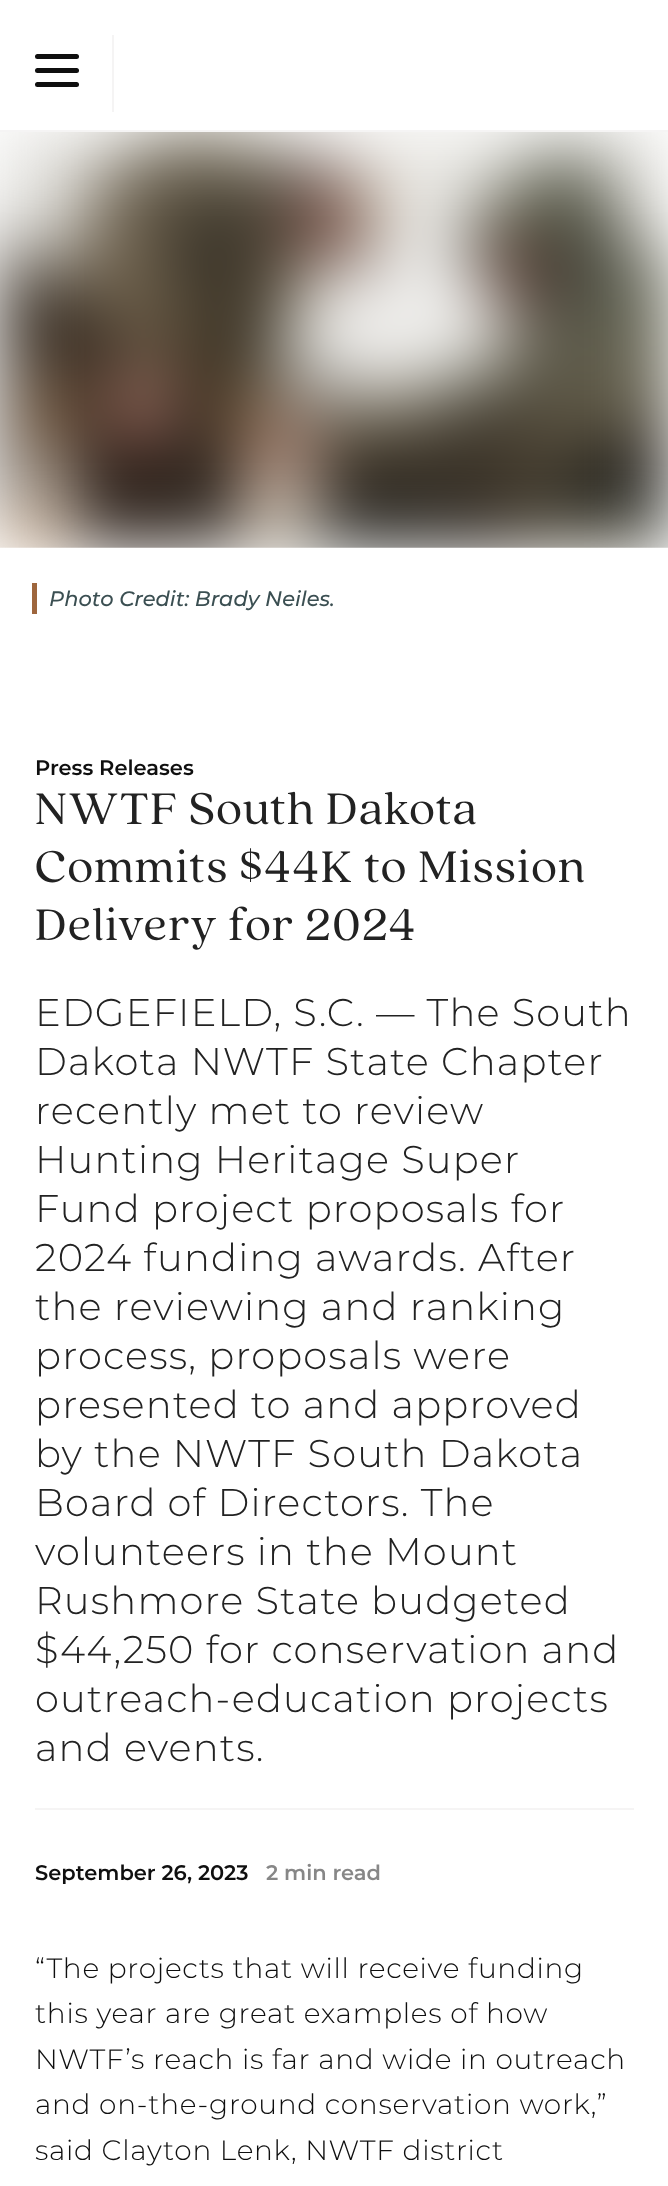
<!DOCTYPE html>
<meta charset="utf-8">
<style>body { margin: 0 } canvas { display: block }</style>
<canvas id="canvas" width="668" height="2186"></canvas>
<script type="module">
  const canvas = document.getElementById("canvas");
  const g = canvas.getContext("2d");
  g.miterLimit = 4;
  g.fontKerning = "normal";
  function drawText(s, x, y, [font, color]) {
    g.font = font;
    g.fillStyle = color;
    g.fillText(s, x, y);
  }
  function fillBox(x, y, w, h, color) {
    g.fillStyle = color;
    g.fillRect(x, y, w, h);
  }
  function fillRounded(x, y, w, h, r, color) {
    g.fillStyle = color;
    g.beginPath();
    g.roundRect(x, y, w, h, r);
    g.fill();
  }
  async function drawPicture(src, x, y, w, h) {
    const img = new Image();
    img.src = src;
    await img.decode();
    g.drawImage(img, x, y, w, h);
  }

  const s1 = ["italic 500 21px Montserrat", "#3B4F52"];
  const s2 = ["600 21px Montserrat", "#0F0F0F"];
  const s3 = ["49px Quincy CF", "#222222"];
  const s4 = ["300 38.5px Montserrat", "#222222"];
  const s5 = ["600 21px Montserrat", "#878787"];
  const s6 = ["300 28px Montserrat", "#0F0F0F"];

  fillBox(0, 0, 668, 2186, "#FFFFFF");
  fillBox(0, 130, 668, 2, "#F5F4F4");
  fillBox(112, 35, 2, 77, "#F5F4F4");
  fillRounded(35, 54, 44, 5, 2.5, "#0F0F0F");
  fillRounded(35, 68, 44, 5, 2.5, "#0F0F0F");
  fillRounded(35, 82, 44, 5, 2.5, "#0F0F0F");
  await drawPicture("pic1.png", 0, 132, 668, 416);
  fillBox(32, 583, 5, 31, "#9E663D");
  drawText("Photo Credit: Brady Neiles.", 49, 606, s1);
  drawText("Press Releases", 35, 775, s2);
  g.letterSpacing = "1.5px";
  drawText("NWTF South Dakota", 35, 824, s3);
  drawText("Commits $44K to Mission", 35, 882, s3);
  drawText("Delivery for 2024", 35, 940, s3);
  g.letterSpacing = "1.15px";
  drawText("EDGEFIELD, S.C. — The South", 35, 1026, s4);
  drawText("Dakota NWTF State Chapter", 35, 1075, s4);
  drawText("recently met to review", 35, 1124, s4);
  drawText("Hunting Heritage Super", 35, 1173, s4);
  drawText("Fund project proposals for", 35, 1222, s4);
  drawText("2024 funding awards. After", 35, 1271, s4);
  drawText("the reviewing and ranking", 35, 1320, s4);
  drawText("process, proposals were", 35, 1369, s4);
  drawText("presented to and approved", 35, 1418, s4);
  drawText("by the NWTF South Dakota", 35, 1467, s4);
  drawText("Board of Directors. The", 35, 1516, s4);
  drawText("volunteers in the Mount", 35, 1565, s4);
  drawText("Rushmore State budgeted", 35, 1614, s4);
  drawText("$44,250 for conservation and", 35, 1663, s4);
  drawText("outreach-education projects", 35, 1712, s4);
  drawText("and events.", 35, 1761, s4);
  fillBox(35, 1808, 599, 2, "#F5F4F4");
  g.letterSpacing = "0px";
  drawText("September 26, 2023", 35, 1880, s2);
  drawText("2 min read", 266, 1880, s5);
  g.letterSpacing = "0.7px";
  drawText("“The projects that will receive funding", 35, 1978, s6);
  drawText("this year are great examples of how", 35, 2023, s6);
  drawText("NWTF’s reach is far and wide in outreach", 35, 2069, s6);
  drawText("and on-the-ground conservation work,”", 35, 2114, s6);
  drawText("said Clayton Lenk, NWTF district", 35, 2160, s6);
</script>
